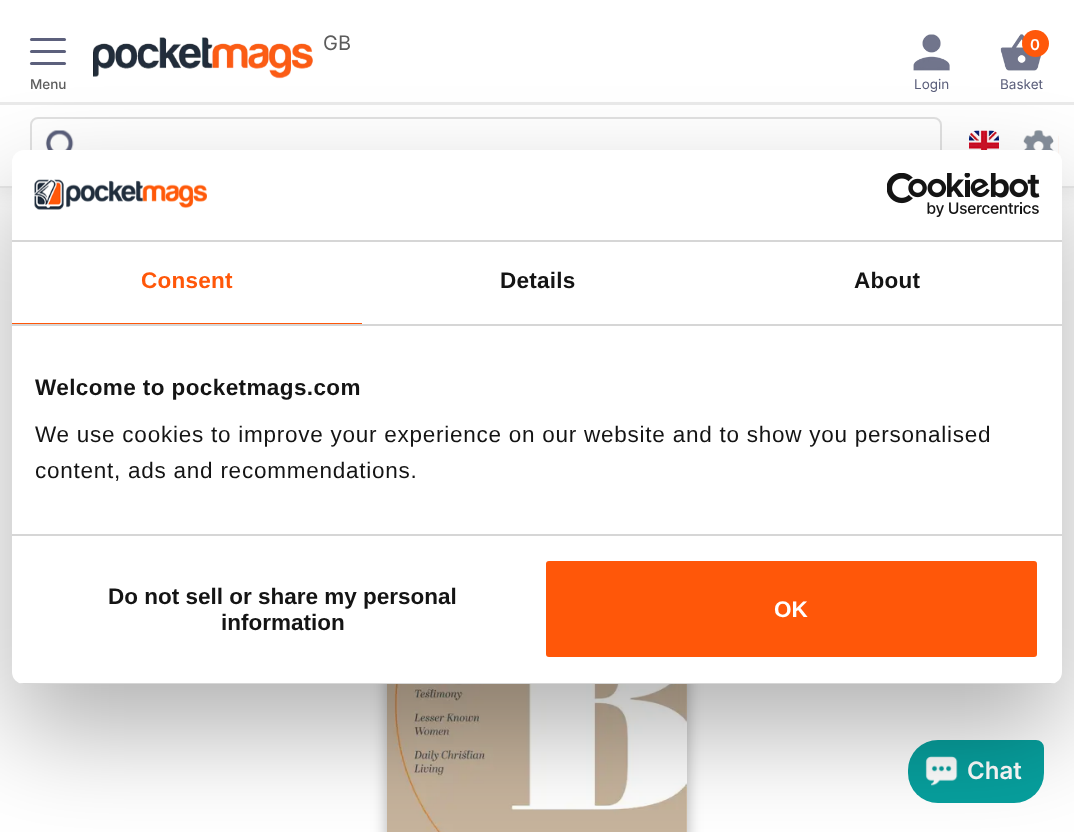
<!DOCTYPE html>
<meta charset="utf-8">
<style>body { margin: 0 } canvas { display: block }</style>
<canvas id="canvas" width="1074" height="832"></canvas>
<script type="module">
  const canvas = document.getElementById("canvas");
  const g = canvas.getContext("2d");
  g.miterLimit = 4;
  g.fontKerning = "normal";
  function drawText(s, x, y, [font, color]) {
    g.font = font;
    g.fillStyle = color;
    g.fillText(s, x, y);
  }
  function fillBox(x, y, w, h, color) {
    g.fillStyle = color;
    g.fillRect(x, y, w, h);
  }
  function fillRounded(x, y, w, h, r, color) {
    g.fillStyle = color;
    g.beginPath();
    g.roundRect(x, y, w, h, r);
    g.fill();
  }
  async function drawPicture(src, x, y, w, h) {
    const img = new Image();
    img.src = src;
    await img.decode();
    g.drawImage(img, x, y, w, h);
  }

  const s1 = ["500 13.5px Inter", "#5C5C5C"];
  const s2 = ["20px Inter", "#5C5C5C"];
  const s3 = ["13.5px Inter", "#5C607C"];
  const s4 = ["600 15px Inter", "#FFFFFF"];
  const s5 = ["600 24px Inter", "#FFFFFF"];
  const s6 = ["bold 22.5px Liberation Sans", "#FF5709"];
  const s7 = ["bold 22.5px Liberation Sans", "#141414"];
  const s8 = ["22.5px Liberation Sans", "#141414"];
  const s9 = ["bold 22.5px Liberation Sans", "#FFFFFF"];

  fillBox(0, 0, 1074, 832, "#FFFFFF");
  g.fillStyle = "rgba(0, 0, 0, 0.05)";
  g.filter = "blur(7.5px)";
  g.beginPath();
  g.rect(-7, -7, 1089, 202);
  g.fill();
  g.filter = "none";
  fillBox(0, 0, 1074, 186, "#FFFFFF");
  fillBox(0, 102, 1074, 3, "#EAEAEA");
  fillRounded(30, 38, 36, 3, 1.5, "#5C607C");
  fillRounded(30, 50, 36, 3, 1.5, "#5C607C");
  fillRounded(30, 62, 36, 3, 1.5, "#5C607C");
  drawText("Menu", 30, 89, s1);
  await drawPicture("pic1.png", 93, 37, 220, 42);
  drawText("GB", 323, 50, s2);
  await drawPicture("pic2.png", 913, 34, 37, 37);
  drawText("Login", 914, 89, s3);
  await drawPicture("pic3.png", 1000, 34, 41, 37);
  g.fillStyle = "#FF580A";
  g.beginPath();
  g.arc(1035.5, 43.5, 13.5, 0, Math.PI * 2);
  g.fill();
  drawText("0", 1030, 50, s4);
  drawText("Basket", 1000, 89, s3);
  fillBox(0, 186, 1074, 2, "#EAEAEA");
  g.beginPath();
  g.roundRect(31, 118, 910, 55, 7);
  g.strokeStyle = "#E1E1E1";
  g.lineWidth = 2;
  g.stroke();
  await drawPicture("pic4.png", 45, 130, 29, 20);
  await drawPicture("pic5.png", 969, 130, 30, 20);
  await drawPicture("pic6.png", 1023, 130, 36, 25);
  g.fillStyle = "rgba(0, 0, 0, 0.3)";
  g.filter = "blur(7.5px)";
  g.beginPath();
  g.roundRect(387, 572, 300, 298, 15);
  g.fill();
  g.filter = "none";
  await drawPicture("pic7.png", 387, 684, 300, 148);
  g.fillStyle = "#07A09E";
  g.beginPath();
  g.roundRect(908, 740, 136, 63, [30, 8, 30, 30]);
  g.fill();
  await drawPicture("pic8.png", 925, 756, 33, 30);
  drawText("Chat", 967, 779, s5);
  g.fillStyle = "rgba(0, 0, 0, 0.3)";
  g.filter = "blur(51px)";
  g.beginPath();
  g.roundRect(12, 198, 1050, 534, 12);
  g.fill();
  g.filter = "none";
  fillRounded(12, 150, 1050, 534, 12, "#FFFFFF");
  fillBox(12, 240, 1050, 2, "#D6D6D6");
  await drawPicture("pic9.png", 34, 179, 173, 31);
  await drawPicture("pic10.png", 887, 173, 153, 44);
  fillBox(12, 324, 1050, 2, "#D6D6D6");
  fillBox(12, 323, 350, 1, "#FF5709");
  g.letterSpacing = "0.25px";
  drawText("Consent", 141, 288, s6);
  drawText("Details", 500, 288, s7);
  drawText("About", 854, 288, s7);
  fillBox(12, 534, 1050, 2, "#D6D6D6");
  g.letterSpacing = "0.4px";
  drawText("Welcome to pocketmags.com", 35, 395, s7);
  g.letterSpacing = "0.75px";
  drawText("We use cookies to improve your experience on our website and to show you personalised", 35, 442, s8);
  drawText("content, ads and recommendations.", 35, 478, s8);
  g.save();
  g.beginPath();
  g.roundRect(12, 150, 1050, 534, 12);
  g.clip();
  fillBox(12, 683, 1050, 1, "#D6D6D6");
  g.restore();
  g.letterSpacing = "0px";
  drawText("Do not sell or share my personal", 108, 604, s7);
  drawText("information", 221, 630, s7);
  g.fillStyle = "#FF5709";
  g.beginPath();
  g.roundRect(544.5, 559.5, 494, 99, 4.5);
  g.fill();
  g.strokeStyle = "#FFFFFF";
  g.lineWidth = 3;
  g.stroke();
  drawText("OK", 774, 617, s9);
</script>
